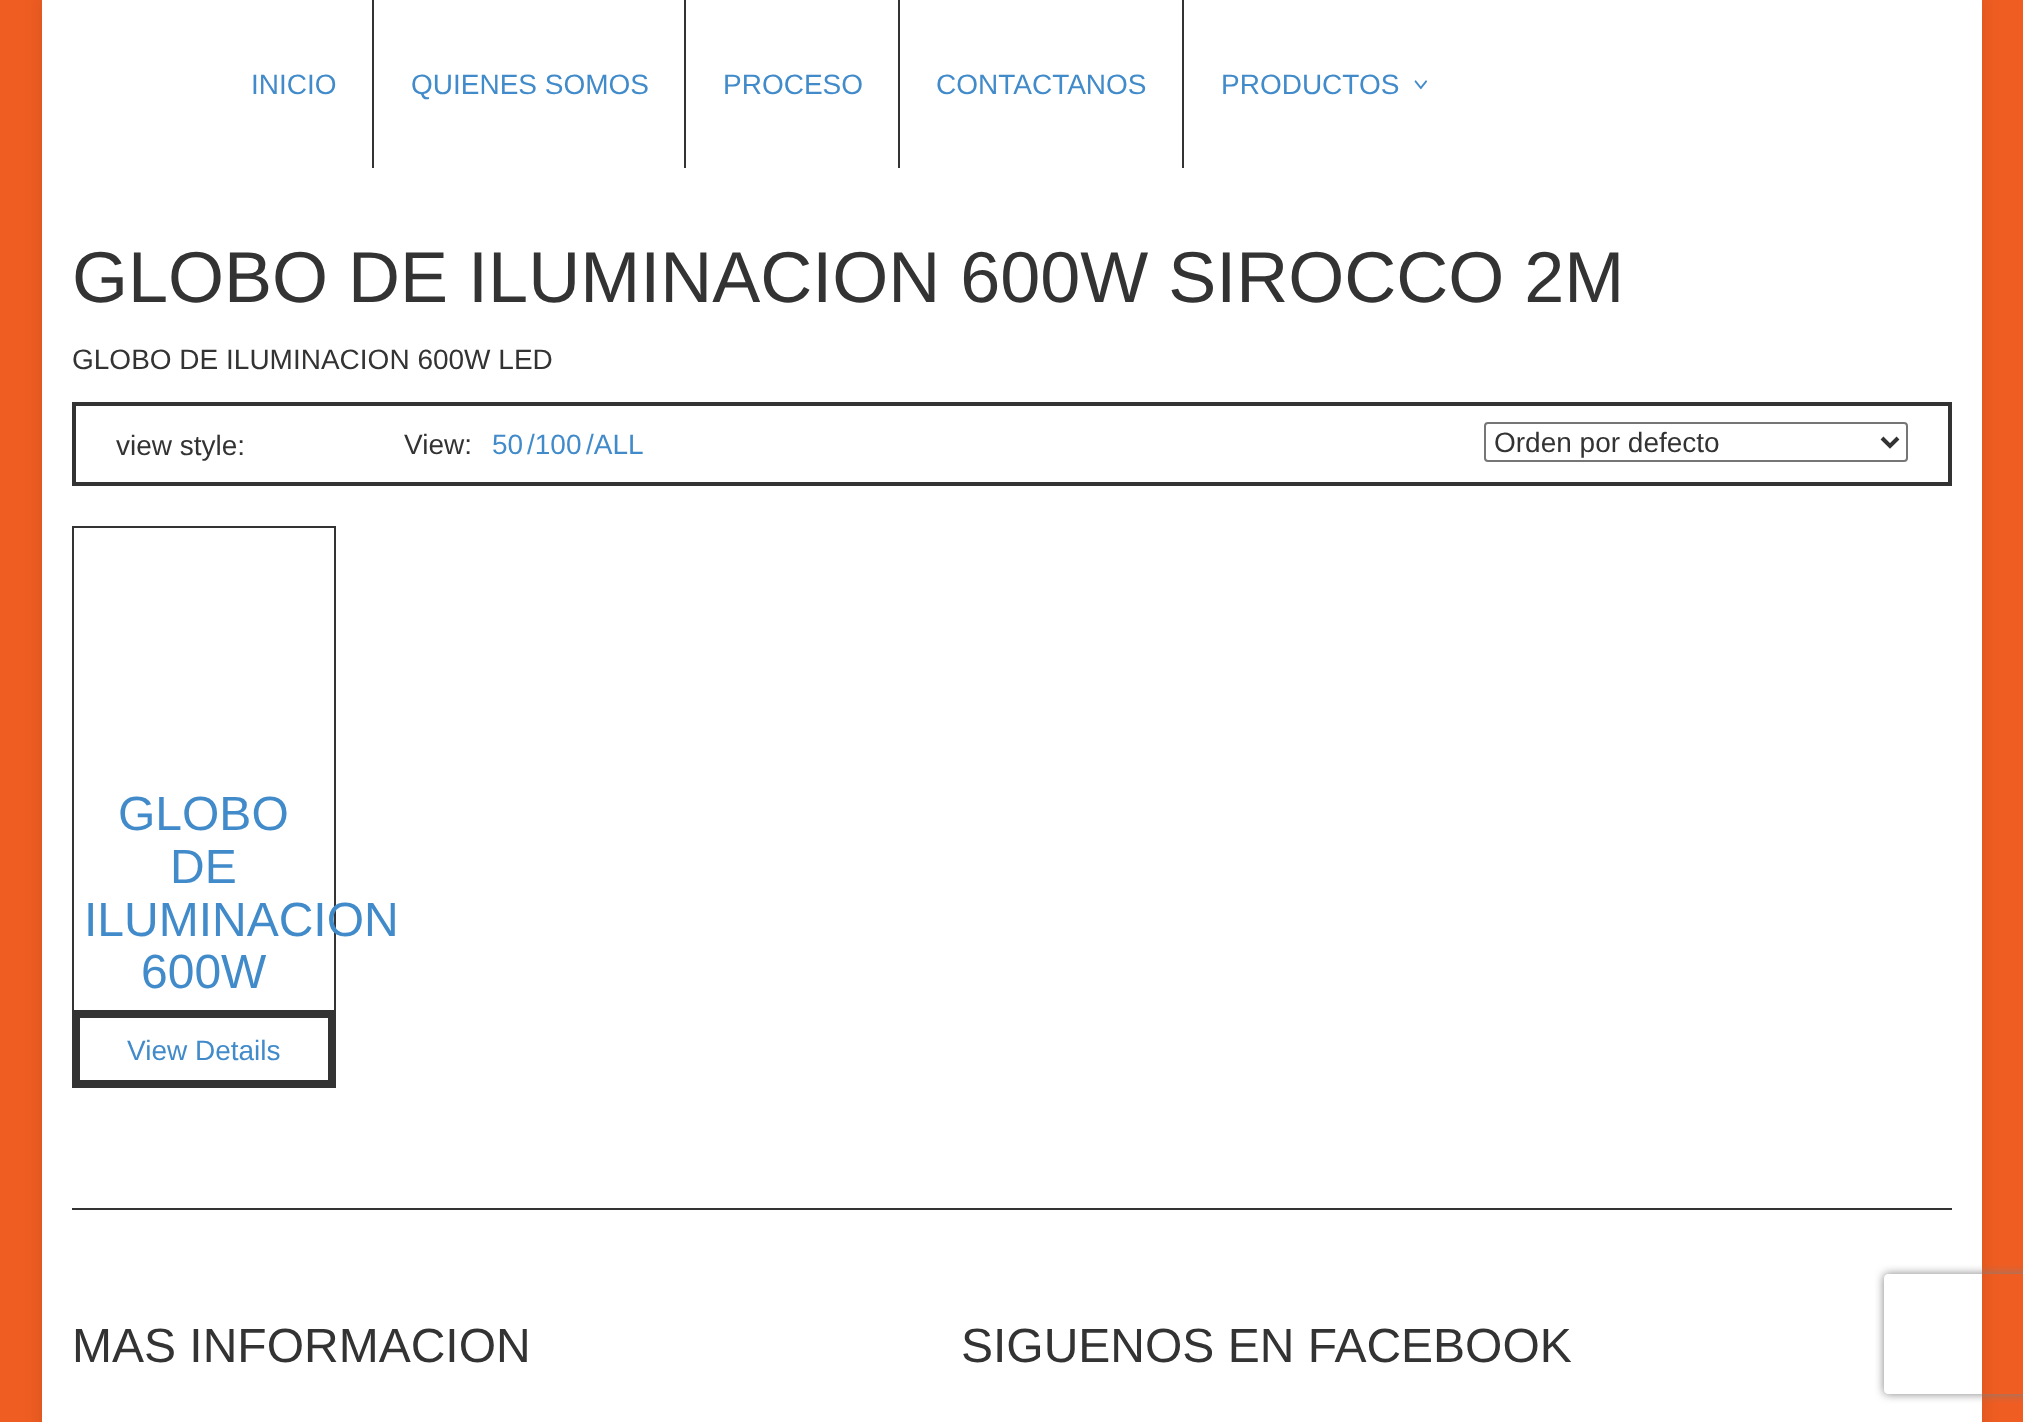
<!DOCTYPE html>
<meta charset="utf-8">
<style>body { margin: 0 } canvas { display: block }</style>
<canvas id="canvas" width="2023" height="1422"></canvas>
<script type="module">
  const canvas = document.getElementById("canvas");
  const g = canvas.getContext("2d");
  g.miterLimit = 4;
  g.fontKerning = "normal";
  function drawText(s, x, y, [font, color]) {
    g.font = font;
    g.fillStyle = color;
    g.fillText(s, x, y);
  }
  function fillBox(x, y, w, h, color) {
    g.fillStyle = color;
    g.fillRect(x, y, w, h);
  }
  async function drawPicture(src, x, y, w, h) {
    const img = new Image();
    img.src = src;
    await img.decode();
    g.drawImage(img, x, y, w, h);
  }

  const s1 = ["28px Liberation Sans", "#428BCA"];
  const s2 = ["72px Liberation Sans", "#333333"];
  const s3 = ["28px Liberation Sans", "#333333"];
  const s4 = ["48px Liberation Sans", "#428BCA"];
  const s5 = ["48px Liberation Sans", "#333333"];

  fillBox(0, 0, 2023, 1422, "#EF5D22");
  g.fillStyle = "rgba(0, 0, 0, 0.1)";
  g.filter = "blur(9px)";
  g.beginPath();
  g.rect(42, -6, 1940, 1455);
  g.fill();
  g.filter = "none";
  fillBox(42, 0, 1940, 1422, "#FFFFFF");
  drawText("INICIO", 251, 94, s1);
  fillBox(372, 0, 2, 168, "#333333");
  drawText("QUIENES SOMOS", 411, 94, s1);
  fillBox(684, 0, 2, 168, "#333333");
  drawText("PROCESO", 723, 94, s1);
  fillBox(898, 0, 2, 168, "#333333");
  drawText("CONTACTANOS", 936, 94, s1);
  fillBox(1182, 0, 2, 168, "#333333");
  drawText("PRODUCTOS", 1221, 94, s1);
  await drawPicture("pic1.png", 1414, 80, 13, 10);
  drawText("GLOBO DE ILUMINACION 600W SIROCCO 2M", 72, 302, s2);
  drawText("GLOBO DE ILUMINACION 600W LED", 72, 369, s3);
  g.strokeStyle = "#333333";
  g.lineWidth = 4;
  g.strokeRect(74, 404, 1876, 80);
  drawText("view style:", 116, 455, s3);
  drawText("View:", 404, 454, s3);
  drawText("50", 492, 454, s1);
  drawText("/100", 527, 454, s1);
  drawText("/ALL", 586, 454, s1);
  g.beginPath();
  g.roundRect(1485, 423, 422, 38, 3);
  g.strokeStyle = "#767676";
  g.lineWidth = 2;
  g.stroke();
  g.beginPath();
  g.moveTo(1882, 438);
  g.lineTo(1890, 446);
  g.lineTo(1898, 438);
  g.strokeStyle = "#333333";
  g.lineWidth = 4;
  g.stroke();
  drawText("Orden por defecto", 1494, 452, s3);
  g.lineWidth = 2;
  g.strokeRect(73, 527, 262, 560);
  drawText("GLOBO", 118, 830, s4);
  drawText("DE", 170, 883, s4);
  drawText("ILUMINACION", 84, 936, s4);
  drawText("600W", 141, 988, s4);
  fillBox(74, 1010, 260, 2, "#333333");
  g.lineWidth = 6;
  g.strokeRect(77, 1015, 254, 68);
  drawText("View Details", 127, 1060, s1);
  fillBox(72, 1208, 1880, 2, "#333333");
  drawText("MAS INFORMACION", 72, 1362, s5);
  drawText("SIGUENOS EN FACEBOOK", 961, 1362, s5);
  g.save();
  g.beginPath();
  g.moveTo(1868, 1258);
  g.lineTo(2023, 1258);
  g.lineTo(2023, 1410);
  g.lineTo(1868, 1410);
  g.closePath();
  g.moveTo(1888, 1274);
  g.lineTo(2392, 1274);
  g.bezierCurveTo(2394, 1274, 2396, 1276, 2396, 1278);
  g.lineTo(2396, 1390);
  g.bezierCurveTo(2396, 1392, 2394, 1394, 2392, 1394);
  g.lineTo(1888, 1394);
  g.bezierCurveTo(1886, 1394, 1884, 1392, 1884, 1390);
  g.lineTo(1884, 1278);
  g.bezierCurveTo(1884, 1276, 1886, 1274, 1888, 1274);
  g.closePath();
  g.clip("evenodd");
  g.fillStyle = "#808080";
  g.filter = "blur(5px)";
  g.beginPath();
  g.roundRect(1884, 1274, 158, 120, 4);
  g.fill();
  g.filter = "none";
  g.restore();
</script>
